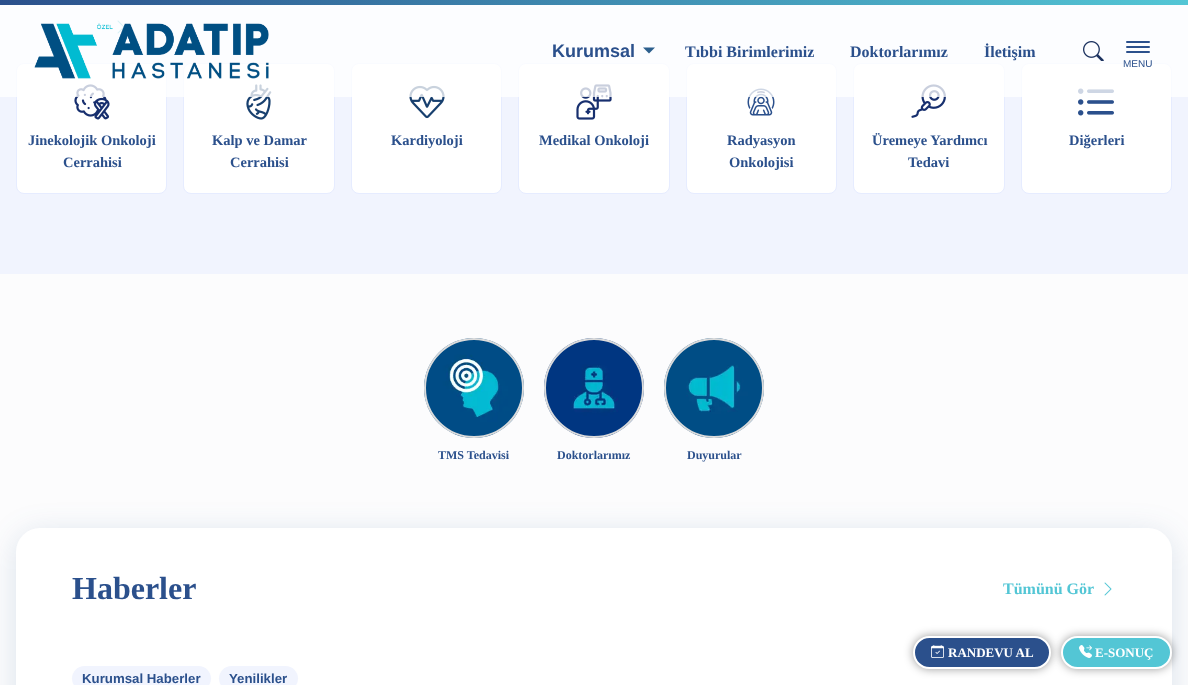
<!DOCTYPE html>
<meta charset="utf-8">
<style>body { margin: 0 } canvas { display: block }</style>
<canvas id="canvas" width="1188" height="685"></canvas>
<script type="module">
  const canvas = document.getElementById("canvas");
  const g = canvas.getContext("2d");
  g.miterLimit = 4;
  g.fontKerning = "normal";
  function drawText(s, x, y, [font, color]) {
    g.font = font;
    g.fillStyle = color;
    g.fillText(s, x, y);
  }
  function fillBox(x, y, w, h, color) {
    g.fillStyle = color;
    g.fillRect(x, y, w, h);
  }
  function fillRounded(x, y, w, h, r, color) {
    g.fillStyle = color;
    g.beginPath();
    g.roundRect(x, y, w, h, r);
    g.fill();
  }
  async function drawPicture(src, x, y, w, h) {
    const img = new Image();
    img.src = src;
    await img.decode();
    g.drawImage(img, x, y, w, h);
  }
  let gradient;

  const s1 = ["bold 18px Liberation Sans", "#2B508C"];
  const s2 = ["bold 16px Liberation Serif", "#2B508C"];
  const s3 = ["10px Liberation Sans", "#2B508C"];
  const s4 = ["bold 14.5px Liberation Serif", "#2B508C"];
  const s5 = ["bold 12px Liberation Serif", "#2B508C"];
  const s6 = ["bold 32px Liberation Serif", "#2B508C"];
  const s7 = ["bold 16px Liberation Serif", "#53C6D5"];
  const s8 = ["bold 13.25px Liberation Sans", "#2B508C"];
  const s9 = ["bold 13px Liberation Serif", "#FFFFFF"];

  fillBox(0, 0, 1188, 685, "#FCFCFD");
  fillBox(0, 5, 1188, 269, "#F1F4FE");
  await drawPicture("pic3.png", 117, 20, 8, 14);
  g.fillStyle = "#FFFFFF";
  g.beginPath();
  g.roundRect(16.5, 63.5, 150, 130, 7.5);
  g.fill();
  g.strokeStyle = "#E6ECFF";
  g.stroke();
  await drawPicture("pic4.png", 74, 84, 36, 36);
  g.beginPath();
  g.roundRect(183.5, 63.5, 151, 130, 7.5);
  g.fill();
  g.stroke();
  await drawPicture("pic5.png", 246, 84, 26, 36);
  g.beginPath();
  g.roundRect(351.5, 63.5, 150, 130, 7.5);
  g.fill();
  g.stroke();
  await drawPicture("pic6.png", 409, 85, 36, 34);
  g.beginPath();
  g.roundRect(518.5, 63.5, 151, 130, 7.5);
  g.fill();
  g.stroke();
  await drawPicture("pic7.png", 576, 84, 36, 36);
  g.beginPath();
  g.roundRect(686.5, 63.5, 150, 130, 7.5);
  g.fill();
  g.stroke();
  await drawPicture("pic8.png", 747, 88, 28, 28);
  g.beginPath();
  g.roundRect(853.5, 63.5, 151, 130, 7.5);
  g.fill();
  g.stroke();
  await drawPicture("pic9.png", 911, 84, 35, 34);
  g.beginPath();
  g.roundRect(1021.5, 63.5, 150, 130, 7.5);
  g.fill();
  g.stroke();
  await drawPicture("pic10.png", 1078, 88, 36, 28);
  fillBox(0, 5, 1188, 92, "rgba(255, 255, 255, 0.77)");
  gradient = g.createLinearGradient(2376, 2.5, 0, 2.5);
  gradient.addColorStop(0, "#2B508C");
  gradient.addColorStop(0.5, "#53C6D5");
  gradient.addColorStop(1, "#2B508C");
  g.fillStyle = gradient;
  g.fillRect(0, 0, 1188, 5);
  await drawPicture("pic1.png", 34, 23, 235, 56);
  drawText("Kurumsal", 552, 57, s1);
  g.fillStyle = "#2C5F8D";
  g.beginPath();
  g.moveTo(643, 47.5);
  g.lineTo(655, 47.5);
  g.lineTo(649, 53.5);
  g.closePath();
  g.fill();
  drawText("Tıbbi Birimlerimiz", 685, 57, s2);
  drawText("Doktorlarımız", 850, 57, s2);
  drawText("İletişim", 984, 57, s2);
  await drawPicture("pic2.png", 1083, 41, 21, 20);
  fillRounded(1126, 51, 24, 2, 1, "#2B508C");
  fillRounded(1126, 41, 24, 2, 1, "#2B508C");
  fillRounded(1126, 46, 24, 2, 1, "#2B508C");
  drawText("MENU", 1123, 67, s3);
  drawText("Jinekolojik Onkoloji", 28, 145, s4);
  drawText("Cerrahisi", 63, 167, s4);
  drawText("Kalp ve Damar", 212, 145, s4);
  drawText("Cerrahisi", 230, 167, s4);
  drawText("Kardiyoloji", 391, 145, s4);
  drawText("Medikal Onkoloji", 539, 145, s4);
  drawText("Radyasyon", 727, 145, s4);
  drawText("Onkolojisi", 729, 167, s4);
  drawText("Üremeye Yardımcı", 872, 145, s4);
  drawText("Tedavi", 908, 167, s4);
  drawText("Diğerleri", 1069, 145, s4);
  await drawPicture("pic11.png", 424, 338, 100, 100);
  g.beginPath();
  g.arc(474, 388, 49, 0, Math.PI * 2);
  g.strokeStyle = "#DBDBDB";
  g.lineWidth = 2;
  g.stroke();
  drawText("TMS Tedavisi", 438, 459, s5);
  await drawPicture("pic12.png", 544, 338, 100, 100);
  g.beginPath();
  g.arc(594, 388, 49, 0, Math.PI * 2);
  g.stroke();
  drawText("Doktorlarımız", 557, 459, s5);
  await drawPicture("pic13.png", 664, 338, 100, 100);
  g.beginPath();
  g.arc(714, 388, 49, 0, Math.PI * 2);
  g.stroke();
  drawText("Duyurular", 687, 459, s5);
  g.fillStyle = "rgba(44, 96, 141, 0.16)";
  g.filter = "blur(15px)";
  g.beginPath();
  g.roundRect(16, 533, 1156, 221, 24);
  g.fill();
  g.filter = "none";
  fillRounded(16, 528, 1156, 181, 24, "#FFFFFF");
  drawText("Haberler", 72, 599, s6);
  drawText("Tümünü Gör", 1003, 594, s7);
  await drawPicture("pic14.png", 1104, 582, 8, 14);
  fillRounded(72, 666, 139, 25, 12.5, "#F1F4FE");
  drawText("Kurumsal Haberler", 82, 683, s8);
  fillRounded(219, 666, 79, 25, 12.5, "#F1F4FE");
  drawText("Yenilikler", 229, 683, s8);
  g.fillStyle = "rgba(0, 0, 0, 0.4)";
  g.filter = "blur(5px)";
  g.beginPath();
  g.roundRect(913, 636, 138, 33, 16.5);
  g.fill();
  g.filter = "none";
  g.fillStyle = "#2B508C";
  g.beginPath();
  g.roundRect(914, 637, 136, 31, 15.5);
  g.fill();
  g.strokeStyle = "#FFFFFF";
  g.stroke();
  await drawPicture("pic15.png", 931, 645, 13, 13);
  drawText("RANDEVU AL", 948, 657, s9);
  g.fillStyle = "rgba(0, 0, 0, 0.4)";
  g.filter = "blur(5px)";
  g.beginPath();
  g.roundRect(1061, 636, 111, 33, 16.5);
  g.fill();
  g.filter = "none";
  g.fillStyle = "#53C6D5";
  g.beginPath();
  g.roundRect(1062, 637, 109, 31, 15.5);
  g.fill();
  g.stroke();
  await drawPicture("pic16.png", 1079, 645, 13, 13);
  drawText("E-SONUÇ", 1095, 657, s9);
</script>
